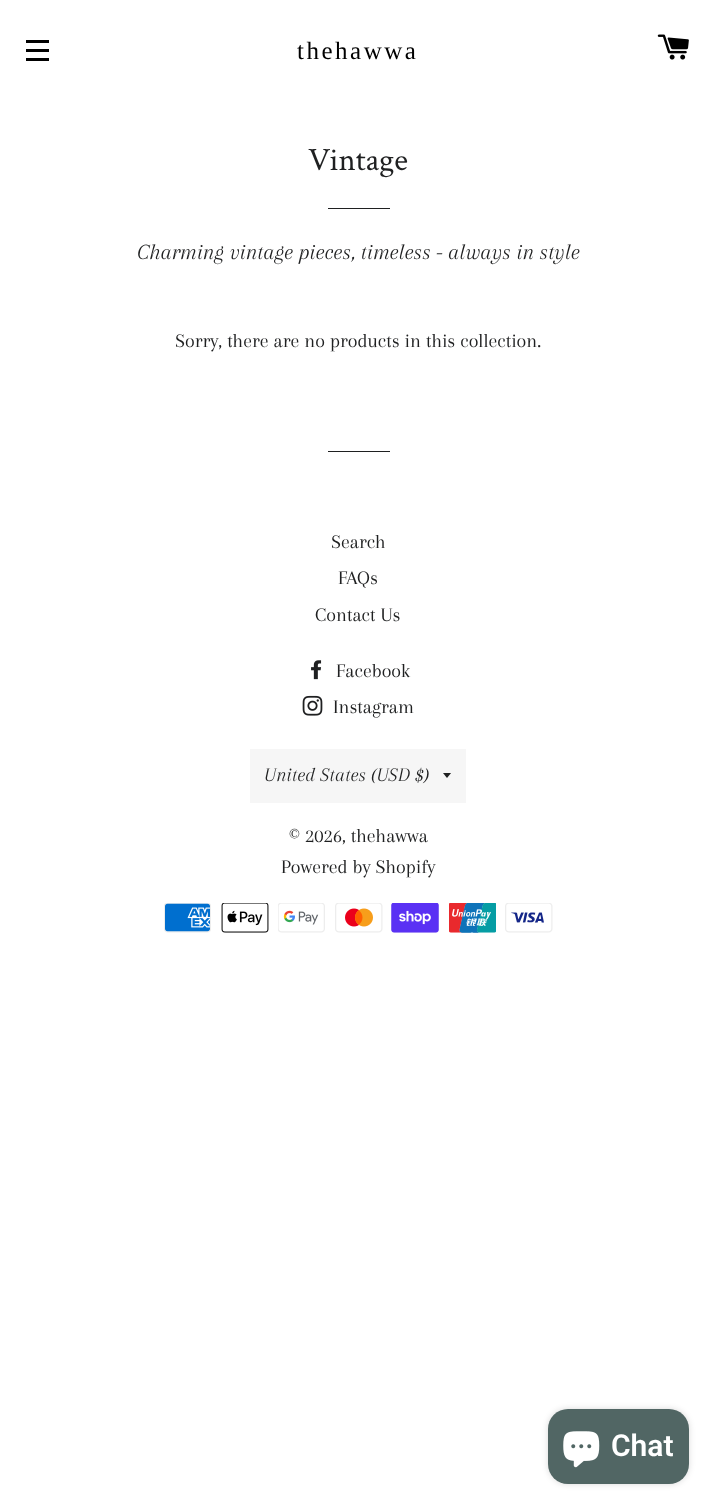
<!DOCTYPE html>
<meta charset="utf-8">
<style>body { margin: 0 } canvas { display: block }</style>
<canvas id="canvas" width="716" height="1509"></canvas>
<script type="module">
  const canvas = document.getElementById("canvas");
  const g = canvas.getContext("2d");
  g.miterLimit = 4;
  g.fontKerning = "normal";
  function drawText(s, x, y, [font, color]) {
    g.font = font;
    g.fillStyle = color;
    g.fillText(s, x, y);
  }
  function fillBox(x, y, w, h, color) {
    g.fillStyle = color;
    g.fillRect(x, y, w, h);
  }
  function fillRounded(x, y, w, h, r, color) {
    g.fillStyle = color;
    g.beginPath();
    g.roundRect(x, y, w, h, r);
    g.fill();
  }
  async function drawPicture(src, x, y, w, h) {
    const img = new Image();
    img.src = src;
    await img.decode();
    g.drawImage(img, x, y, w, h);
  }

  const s1 = ["25px Liberation Serif", "#000000"];
  const s2 = ["32.5px Crimson Text", "#1F2021"];
  const s3 = ["italic 22.5px Arapey", "#1F2021"];
  const s4 = ["20px Arapey", "#1F2021"];
  const s5 = ["italic 20px Arapey", "#1F2021"];
  const s6 = ["600 30px Roboto", "#FFFFFF"];

  fillBox(0, 0, 716, 1509, "#FFFFFF");
  fillBox(26, 40, 23, 3, "#000000");
  fillBox(26, 49, 23, 3, "#000000");
  fillBox(26, 58, 23, 3, "#000000");
  g.letterSpacing = "2.5px";
  drawText("thehawwa", 297, 59, s1);
  await drawPicture("pic1.png", 657, 34, 32, 26);
  g.letterSpacing = "0px";
  drawText("Vintage", 308, 170, s2);
  fillBox(328, 208, 62, 1, "#1F2021");
  drawText("Charming vintage pieces, timeless - always in style", 137, 259, s3);
  drawText("Sorry, there are no products in this collection.", 175, 347, s4);
  fillBox(328, 451, 62, 1, "#1F2021");
  drawText("Search", 331, 548, s4);
  drawText("FAQs", 338, 584, s4);
  drawText("Contact Us", 315, 621, s4);
  await drawPicture("pic2.png", 311, 660, 11, 20);
  drawText("Facebook", 336, 677, s4);
  await drawPicture("pic3.png", 302, 695, 21, 21);
  drawText("Instagram", 333, 713, s4);
  fillBox(250, 749, 216, 54, "#F6F6F6");
  g.save();
  g.beginPath();
  g.rect(443, 773, 10, 6);
  g.clip();
  g.fillStyle = "#1F2021";
  g.beginPath();
  g.moveTo(442.5, 772.5);
  g.lineTo(447, 778);
  g.lineTo(451.5, 772.5);
  g.closePath();
  g.fill();
  g.restore();
  drawText("United States (USD $)", 264, 781, s5);
  drawText("© 2026, thehawwa", 289, 842, s4);
  drawText("Powered by Shopify", 281, 873, s4);
  await drawPicture("pic4.png", 164, 903, 47, 30);
  await drawPicture("pic5.png", 221, 903, 48, 30);
  await drawPicture("pic6.png", 278, 903, 47, 30);
  await drawPicture("pic7.png", 335, 903, 48, 30);
  await drawPicture("pic8.png", 391, 903, 48, 30);
  await drawPicture("pic9.png", 449, 903, 47, 30);
  await drawPicture("pic10.png", 505, 903, 48, 30);
  g.fillStyle = "rgba(0, 0, 0, 0.15)";
  g.filter = "blur(3px)";
  g.beginPath();
  g.roundRect(548, 1409, 141, 75, 20);
  g.fill();
  g.filter = "none";
  fillRounded(548, 1409, 141, 75, 20, "#516664");
  await drawPicture("pic11.png", 563, 1431, 37, 37);
  drawText("Chat", 611, 1456, s6);
</script>
